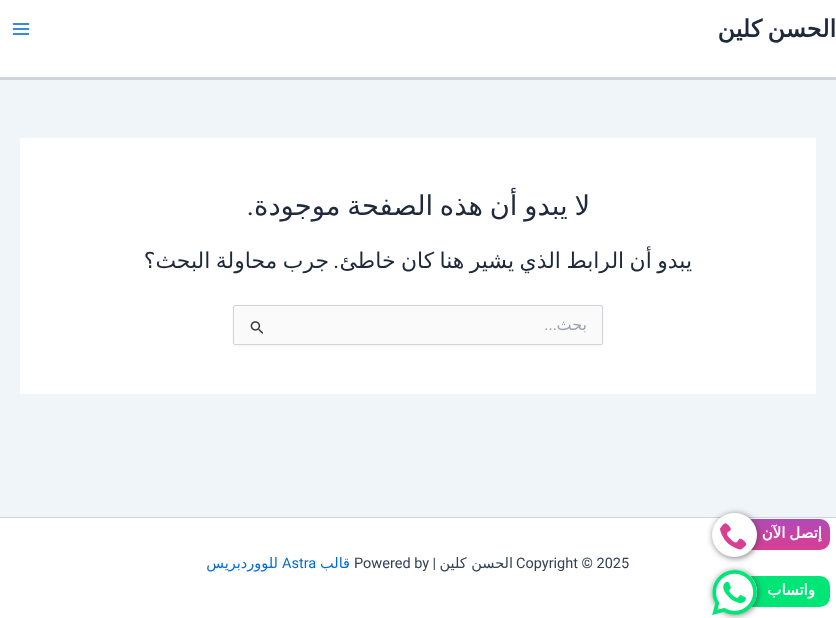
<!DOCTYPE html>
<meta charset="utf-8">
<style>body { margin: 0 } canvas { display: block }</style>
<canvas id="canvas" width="836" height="618"></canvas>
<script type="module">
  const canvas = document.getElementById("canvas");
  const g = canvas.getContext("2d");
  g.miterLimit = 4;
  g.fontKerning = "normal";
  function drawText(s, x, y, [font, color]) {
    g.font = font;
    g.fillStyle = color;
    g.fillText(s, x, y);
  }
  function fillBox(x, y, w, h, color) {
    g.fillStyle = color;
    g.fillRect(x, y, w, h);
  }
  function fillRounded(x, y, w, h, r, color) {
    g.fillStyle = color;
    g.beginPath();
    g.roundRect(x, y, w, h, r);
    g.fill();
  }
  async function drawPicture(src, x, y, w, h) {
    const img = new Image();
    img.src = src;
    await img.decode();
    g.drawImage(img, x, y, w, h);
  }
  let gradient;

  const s1 = ["bold 23.75px DejaVu Sans", "#1E293B"];
  const s2 = ["27.4px DejaVu Sans", "#1E293B"];
  const s3 = ["27.4px Roboto", "#1E293B"];
  const s4 = ["21.9px DejaVu Sans", "#1E293B"];
  const s5 = ["21.9px Roboto", "#1E293B"];
  const s6 = ["16px DejaVu Sans", "#9CA3AF"];
  const s7 = ["16px Roboto", "#9CA3AF"];
  const s8 = ["14.5px Roboto", "#334155"];
  const s9 = ["14.5px DejaVu Sans", "#334155"];
  const s10 = ["14.5px DejaVu Sans", "#046BD2"];
  const s11 = ["14.5px Roboto", "#046BD2"];
  const s12 = ["bold 15px DejaVu Sans", "#FFFFFF"];

  fillBox(0, 0, 836, 618, "#F0F5FA");
  fillBox(0, 0, 836, 77, "#FFFFFF");
  fillBox(0, 77, 836, 3, "#D1D5DB");
  g.wordSpacing = "-2px";
  g.direction = "rtl";
  drawText("الحسن كلين", 836, 37, s1);
  await drawPicture("pic1.png", 12, 23, 18, 12);
  fillBox(20, 138, 796, 256, "#FFFFFF");
  drawText("لا يبدو أن هذه الصفحة موجودة", 590, 215, s2);
  g.wordSpacing = "0px";
  drawText(".", 254, 215, s3);
  g.wordSpacing = "-1.5px";
  drawText("يبدو أن الرابط الذي يشير هنا كان خاطئ", 692, 268, s4);
  g.wordSpacing = "0px";
  drawText(".", 339, 268, s5);
  g.wordSpacing = "-1.5px";
  drawText("جرب محاولة البحث؟", 329, 268, s4);
  g.fillStyle = "rgba(0, 0, 0, 0.05)";
  g.filter = "blur(1px)";
  g.beginPath();
  g.roundRect(233, 306, 370, 40, 2);
  g.fill();
  g.filter = "none";
  g.fillStyle = "#FAFAFA";
  g.beginPath();
  g.roundRect(233.5, 305.5, 369, 39, 1.5);
  g.fill();
  g.strokeStyle = "#D1D5DB";
  g.stroke();
  g.wordSpacing = "0px";
  drawText("بحث", 587, 330, s6);
  drawText("...", 557, 330, s7);
  await drawPicture("pic2.png", 250, 321, 13, 13);
  fillBox(0, 518, 836, 100, "#FFFFFF");
  fillBox(0, 517, 836, 1, "#D1D5DB");
  g.direction = "ltr";
  drawText("Copyright © 2025", 516, 568, s8);
  g.direction = "rtl";
  drawText("الحسن كلين", 513, 568, s9);
  drawText("|", 436, 568, s8);
  g.direction = "ltr";
  drawText("Powered by", 354, 568, s8);
  g.direction = "rtl";
  drawText("قالب", 350, 568, s10);
  g.direction = "ltr";
  drawText("Astra", 282, 568, s11);
  g.direction = "rtl";
  drawText("للووردبريس", 278, 568, s10);
  gradient = g.createLinearGradient(786, 550, 786, 519);
  gradient.addColorStop(0, "#D83F91");
  gradient.addColorStop(0.25, "#D0409B");
  gradient.addColorStop(0.5, "#C743A5");
  gradient.addColorStop(0.75, "#BB47AF");
  gradient.addColorStop(1, "#AE4BB8");
  g.fillStyle = gradient;
  g.beginPath();
  g.roundRect(742, 519, 88, 31, 10);
  g.fill();
  g.wordSpacing = "-1px";
  drawText("إتصل الآن", 822, 538, s12);
  g.fillStyle = "rgba(68, 68, 68, 0.71)";
  g.filter = "blur(3px)";
  g.beginPath();
  g.roundRect(713, 514, 45, 44, 22);
  g.fill();
  g.filter = "none";
  fillRounded(712, 513, 45, 44, 22, "#FFFFFF");
  await drawPicture("pic3.png", 720, 523, 27, 27);
  fillRounded(742, 576, 88, 31, 10, "#00E676");
  g.wordSpacing = "0px";
  drawText("واتساب", 815, 595, s12);
  g.fillStyle = "rgba(68, 68, 68, 0.71)";
  g.filter = "blur(3px)";
  g.beginPath();
  g.roundRect(713, 571, 45, 44, 22);
  g.fill();
  g.filter = "none";
  fillRounded(712, 570, 45, 44, 22, "#FFFFFF");
  await drawPicture("pic4.png", 712, 570, 45, 45);
</script>
